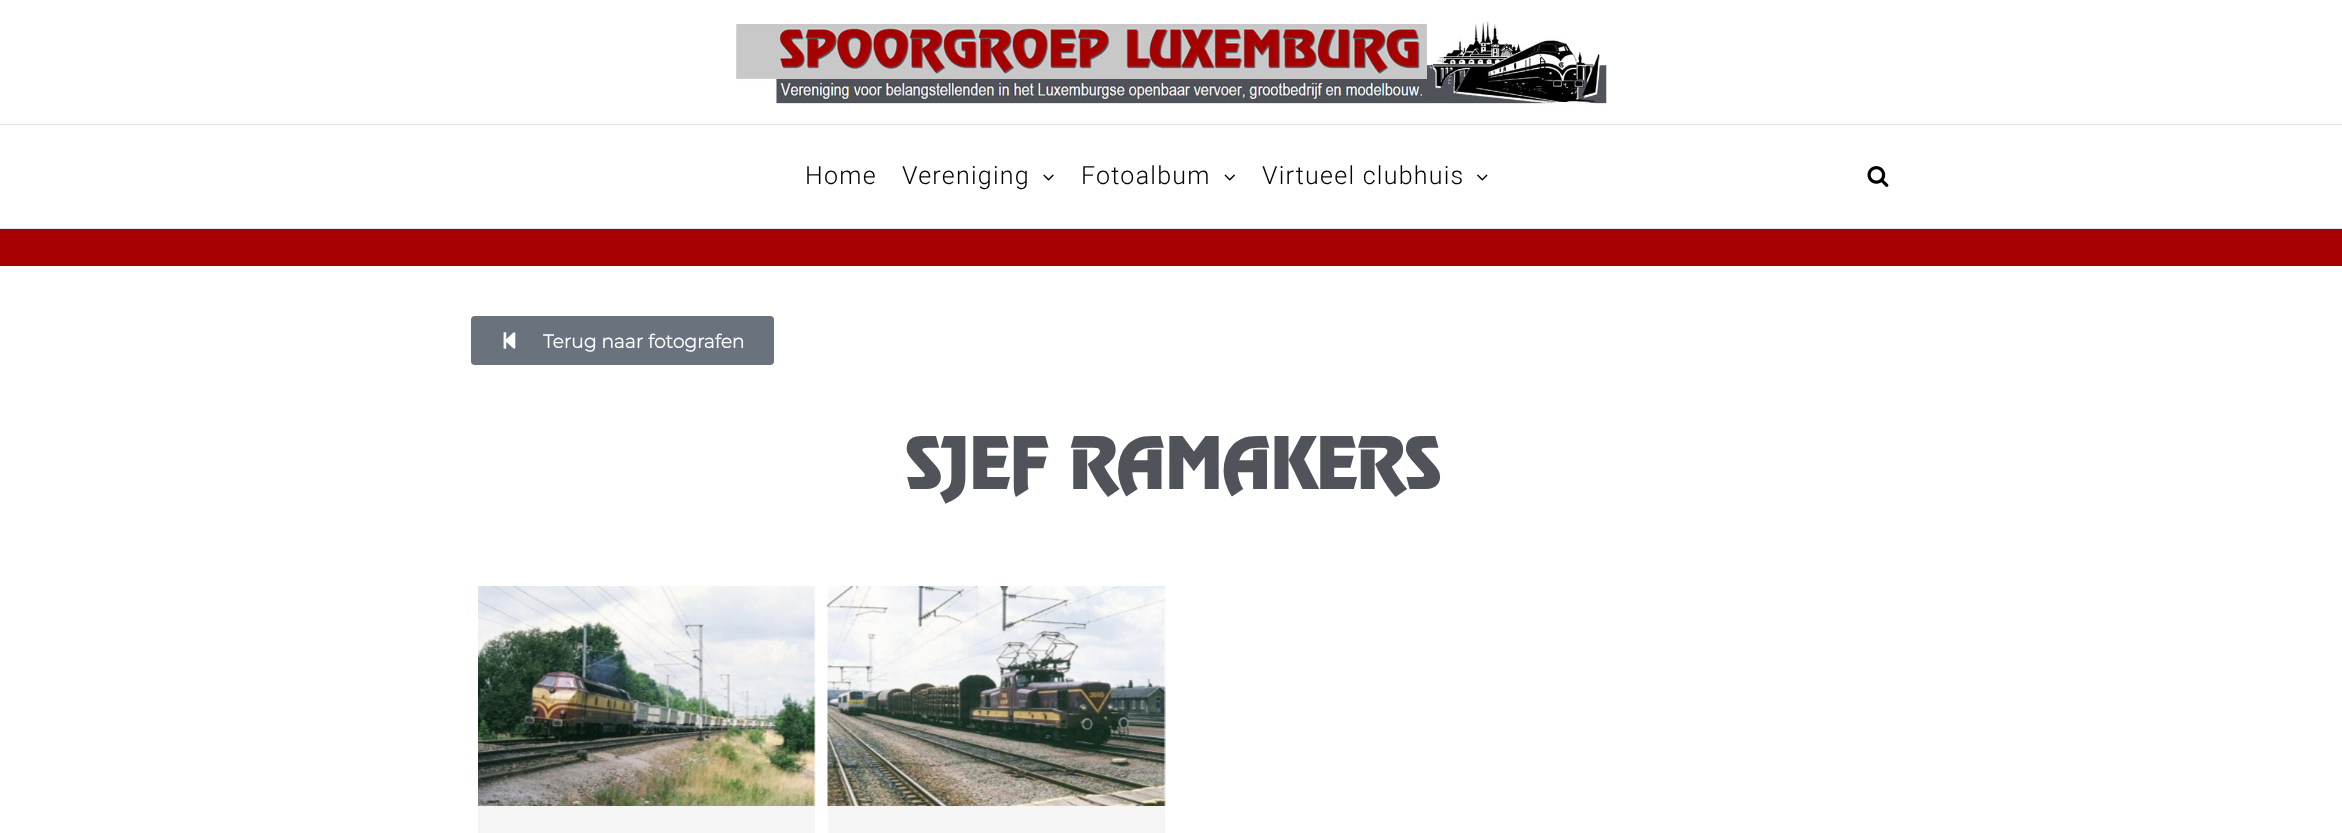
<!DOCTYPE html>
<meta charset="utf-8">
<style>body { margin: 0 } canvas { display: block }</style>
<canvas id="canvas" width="2342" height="833"></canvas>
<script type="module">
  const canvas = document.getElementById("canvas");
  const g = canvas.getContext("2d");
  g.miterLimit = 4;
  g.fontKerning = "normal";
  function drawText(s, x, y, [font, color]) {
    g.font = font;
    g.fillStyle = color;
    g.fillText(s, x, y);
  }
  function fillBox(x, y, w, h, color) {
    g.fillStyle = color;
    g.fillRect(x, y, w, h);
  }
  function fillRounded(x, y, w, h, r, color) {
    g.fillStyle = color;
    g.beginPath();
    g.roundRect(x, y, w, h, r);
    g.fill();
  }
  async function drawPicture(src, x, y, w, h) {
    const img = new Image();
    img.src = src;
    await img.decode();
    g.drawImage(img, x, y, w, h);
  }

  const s1 = ["300 25px Roboto", "#000000"];
  const s2 = ["bold 18.75px Montserrat", "#FFFFFF"];
  const s3 = ["bold 65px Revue", "#50535A"];

  fillBox(0, 0, 2342, 833, "#FFFFFF");
  fillBox(0, 124, 2342, 1, "#E2E2E2");
  await drawPicture("pic1.png", 736, 21, 871, 84);
  fillBox(0, 228, 2342, 1, "#E2E2E2");
  g.letterSpacing = "1.25px";
  drawText("Home", 805, 184, s1);
  drawText("Vereniging", 902, 184, s1);
  await drawPicture("pic2.png", 1043, 174, 11, 7);
  drawText("Fotoalbum", 1081, 184, s1);
  await drawPicture("pic3.png", 1224, 174, 11, 7);
  drawText("Virtueel clubhuis", 1262, 184, s1);
  await drawPicture("pic4.png", 1477, 174, 11, 7);
  await drawPicture("pic5.png", 1867, 166, 22, 21);
  fillBox(0, 229, 2342, 37, "#A60000");
  fillRounded(471, 316, 303, 49, 4, "#69727D");
  await drawPicture("pic6.png", 503, 332, 13, 17);
  g.letterSpacing = "0px";
  drawText("Terug naar fotografen", 543, 348, s2);
  g.letterSpacing = "-1.25px";
  drawText("SJEF RAMAKERS=", 905, 489, s3);
  await drawPicture("pic7.png", 478, 586, 338, 221);
  fillBox(478, 806, 337, 27, "#F5F5F5");
  await drawPicture("pic8.png", 827, 586, 339, 221);
  fillBox(828, 806, 337, 27, "#F5F5F5");
</script>
